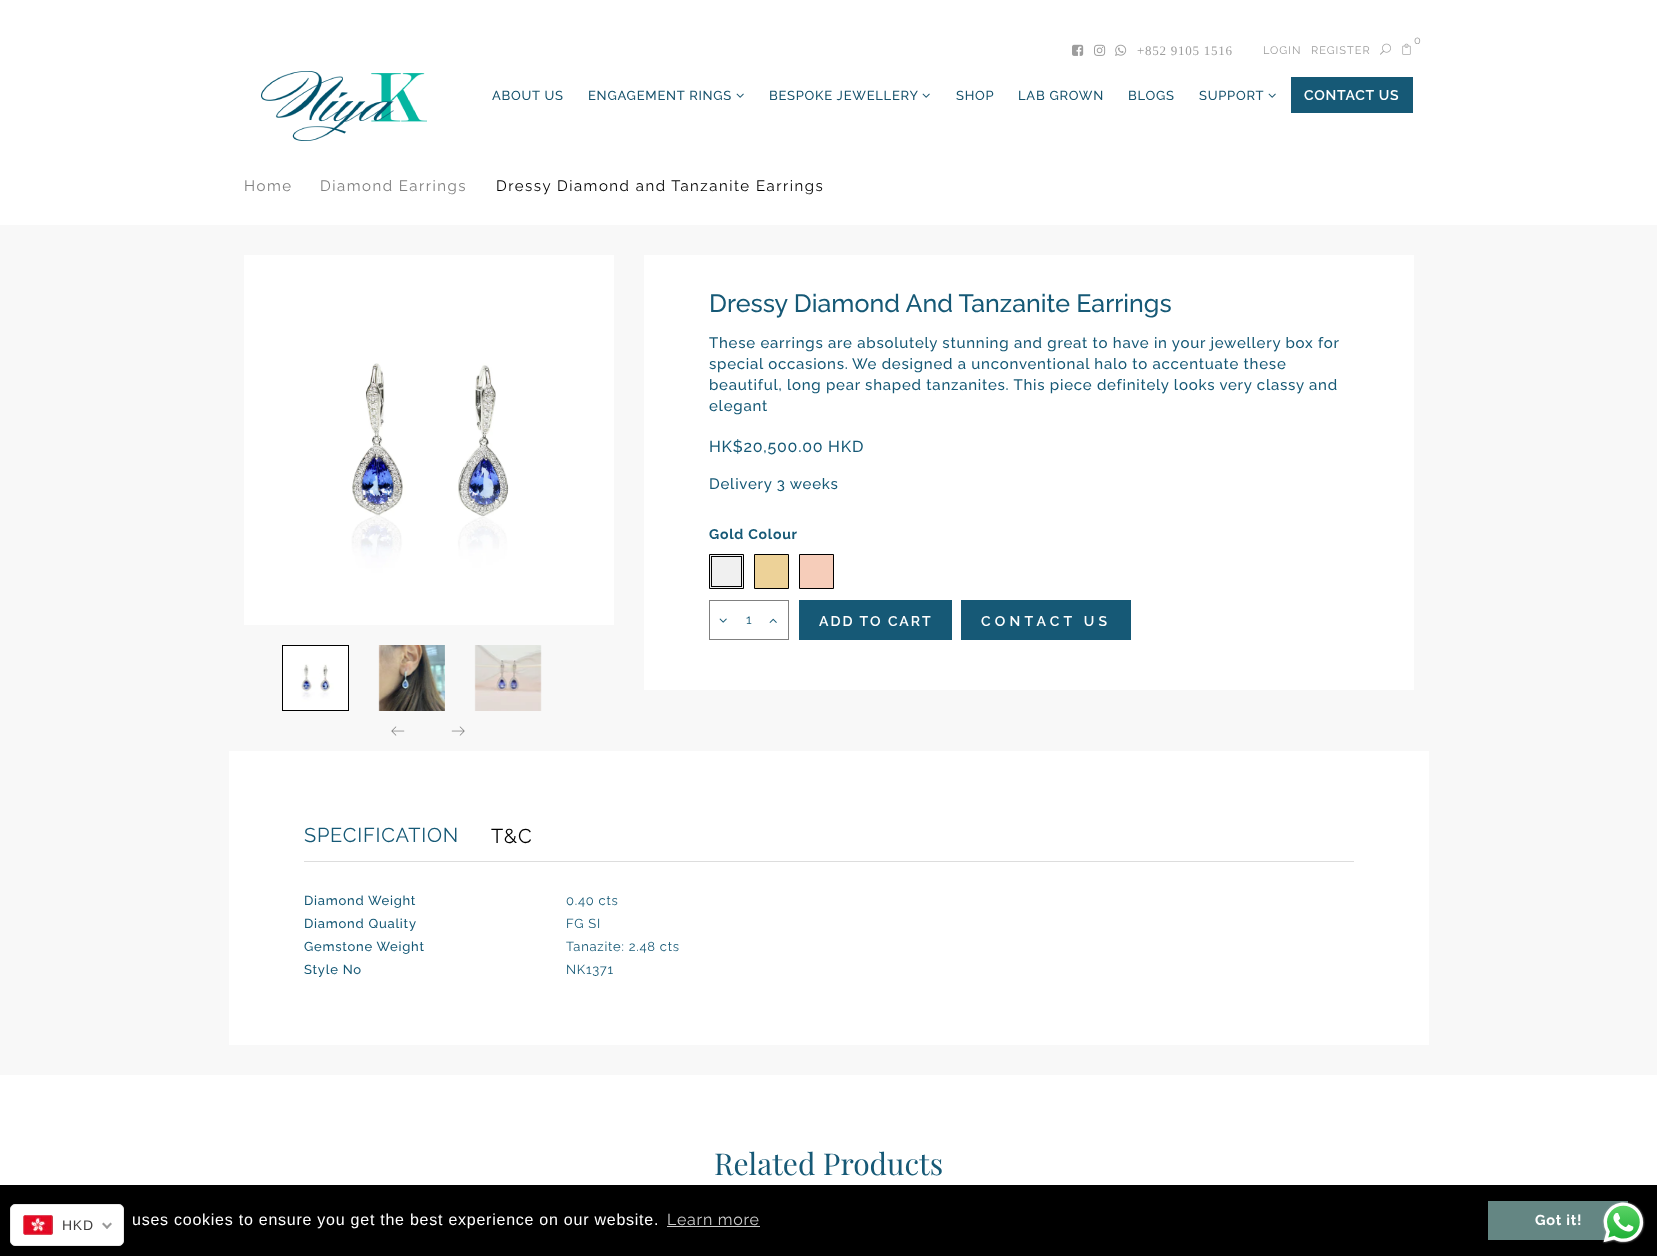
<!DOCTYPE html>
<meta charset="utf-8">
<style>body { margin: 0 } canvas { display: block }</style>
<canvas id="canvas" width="1657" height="1256"></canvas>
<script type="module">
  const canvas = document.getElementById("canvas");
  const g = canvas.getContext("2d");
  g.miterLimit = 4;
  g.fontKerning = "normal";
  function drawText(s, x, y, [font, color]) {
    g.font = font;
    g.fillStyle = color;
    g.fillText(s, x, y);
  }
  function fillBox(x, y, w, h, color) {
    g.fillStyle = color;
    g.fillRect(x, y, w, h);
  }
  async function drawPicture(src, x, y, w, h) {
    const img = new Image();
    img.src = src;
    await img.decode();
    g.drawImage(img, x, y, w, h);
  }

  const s1 = ["13px Liberation Serif", "#9D9D9D"];
  const s2 = ["11px Raleway", "#9D9D9D"];
  const s3 = ["500 13px Raleway", "#17536D"];
  const s4 = ["600 14px Raleway", "#FFFFFF"];
  const s5 = ["15px Raleway", "#808080"];
  const s6 = ["15px Raleway", "#000000"];
  const s7 = ["500 25px Raleway", "#165976"];
  const s8 = ["500 15px Raleway", "#165976"];
  const s9 = ["500 16px Raleway", "#165976"];
  const s10 = ["bold 14px Raleway", "#165976"];
  const s11 = ["13px Raleway", "#165976"];
  const s12 = ["20px Raleway", "#165976"];
  const s13 = ["20px Raleway", "#000000"];
  const s14 = ["500 13px Raleway", "#165976"];
  const s15 = ["30px Playfair Display", "#165976"];
  const s16 = ["14px Liberation Sans", "#403F3F"];
  const s17 = ["16px Liberation Sans", "#FFFFFF"];
  const s18 = ["16px Raleway", "#CCCCCC"];
  const s19 = ["bold 14.5px Raleway", "#FFFFFF"];

  fillBox(0, 0, 1657, 1256, "#FFFFFF");
  await drawPicture("pic1.png", 1072, 44, 12, 12);
  await drawPicture("pic2.png", 1094, 44, 12, 12);
  await drawPicture("pic3.png", 1115, 44, 12, 12);
  g.letterSpacing = "0.75px";
  drawText("+852 9105 1516", 1137, 55, s1);
  g.letterSpacing = "1px";
  drawText("0", 1414, 44, s2);
  await drawPicture("pic4.png", 1402, 43, 9, 12);
  drawText("LOGIN", 1263, 54, s2);
  drawText("REGISTER", 1311, 54, s2);
  await drawPicture("pic5.png", 1380, 43, 11, 12);
  await drawPicture("pic6.png", 261, 71, 166, 70);
  g.letterSpacing = "0.75px";
  drawText("ABOUT US", 492, 100, s3);
  drawText("ENGAGEMENT RINGS", 588, 100, s3);
  await drawPicture("pic7.png", 736, 93, 8, 5);
  drawText("BESPOKE JEWELLERY", 769, 100, s3);
  await drawPicture("pic7.png", 922, 93, 8, 5);
  drawText("SHOP", 956, 100, s3);
  drawText("LAB GROWN", 1018, 100, s3);
  drawText("BLOGS", 1128, 100, s3);
  drawText("SUPPORT", 1199, 100, s3);
  await drawPicture("pic7.png", 1268, 93, 8, 5);
  fillBox(1291, 77, 122, 36, "#165976");
  drawText("CONTACT US", 1304, 100, s4);
  g.letterSpacing = "1.5px";
  drawText("Home", 244, 191, s5);
  drawText("Diamond Earrings", 320, 191, s5);
  drawText("Dressy Diamond and Tanzanite Earrings", 496, 191, s6);
  fillBox(0, 225, 1657, 850, "#F8F8F8");
  await drawPicture("pic8.png", 244, 255, 370, 370);
  g.strokeStyle = "#000000";
  g.strokeRect(282.5, 645.5, 66, 65);
  await drawPicture("pic9.png", 283, 646, 65, 64);
  await drawPicture("pic10.png", 378, 645, 67, 66);
  await drawPicture("pic11.png", 474, 645, 68, 66);
  await drawPicture("pic12.png", 391, 726, 14, 10);
  await drawPicture("pic13.png", 451, 726, 14, 10);
  fillBox(644, 255, 770, 435, "#FFFFFF");
  g.letterSpacing = "0px";
  drawText("Dressy Diamond And Tanzanite Earrings", 709, 312, s7);
  g.letterSpacing = "0.75px";
  drawText("These earrings are absolutely stunning and great to have in your jewellery box for", 709, 348, s8);
  drawText("special occasions.", 709, 369, s8);
  drawText("We designed a unconventional halo to accentuate these", 852, 369, s8);
  drawText("beautiful, long pear shaped tanzanites. This piece definitely looks very classy and", 709, 390, s8);
  drawText("elegant", 709, 411, s8);
  drawText("HK$20,500.00 HKD", 709, 452, s9);
  drawText("Delivery 3 weeks", 709, 489, s8);
  drawText("Gold Colour", 709, 539, s10);
  g.fillStyle = "#F0F0F0";
  g.beginPath();
  g.rect(709.5, 554.5, 34, 34);
  g.fill();
  g.stroke();
  g.strokeRect(711.5, 556.5, 30, 30);
  g.fillStyle = "#EDD298";
  g.beginPath();
  g.rect(754.5, 554.5, 34, 34);
  g.fill();
  g.stroke();
  g.fillStyle = "#F6CDBA";
  g.beginPath();
  g.rect(799.5, 554.5, 34, 34);
  g.fill();
  g.stroke();
  g.strokeStyle = "#808080";
  g.strokeRect(709.5, 600.5, 79, 39);
  g.letterSpacing = "0px";
  drawText("1", 746, 624, s11);
  await drawPicture("pic14.png", 719, 618, 8, 5);
  await drawPicture("pic15.png", 769, 618, 8, 5);
  fillBox(799, 600, 153, 40, "#165976");
  g.letterSpacing = "2px";
  drawText("ADD TO CART", 819, 626, s4);
  fillBox(961, 600, 170, 40, "#165976");
  g.letterSpacing = "4.25px";
  drawText("CONTACT US", 981, 626, s4);
  fillBox(229, 751, 1200, 294, "#FFFFFF");
  fillBox(304, 861, 1050, 1, "#DDDDDD");
  g.letterSpacing = "0.75px";
  drawText("SPECIFICATION", 304, 842, s12);
  drawText("T&C", 491, 843, s13);
  drawText("Diamond Weight", 304, 905, s14);
  drawText("0.40 cts", 566, 905, s11);
  drawText("Diamond Quality", 304, 928, s14);
  drawText("FG SI", 566, 928, s11);
  drawText("Gemstone Weight", 304, 951, s14);
  drawText("Tanazite: 2.48 cts", 566, 951, s11);
  drawText("Style No", 304, 974, s14);
  drawText("NK1371", 566, 974, s11);
  g.letterSpacing = "0px";
  drawText("Related Products", 714, 1175, s15);
  fillBox(0, 1185, 1657, 71, "#000000");
  g.fillStyle = "#FFFFFF";
  g.beginPath();
  g.roundRect(10.5, 1204.5, 113, 41, 4.5);
  g.fill();
  g.strokeStyle = "#E8E8E8";
  g.stroke();
  await drawPicture("pic16.png", 23, 1215, 30, 20);
  g.letterSpacing = "0.75px";
  drawText("HKD", 62, 1230, s16);
  g.fillStyle = "#999999";
  g.beginPath();
  g.moveTo(110.5, 1222.5);
  g.lineTo(112, 1224);
  g.lineTo(107, 1229);
  g.lineTo(105.5, 1227.5);
  g.closePath();
  g.fill();
  g.beginPath();
  g.moveTo(103.5, 1222.5);
  g.lineTo(108.5, 1227.5);
  g.lineTo(107, 1229);
  g.lineTo(102, 1224);
  g.closePath();
  g.fill();
  drawText("uses cookies to ensure you get the best experience on our website.", 132, 1225, s17);
  drawText("Learn more", 667, 1225, s18);
  fillBox(667, 1226, 93, 1, "#CCCCCC");
  fillBox(1488, 1201, 140, 39, "#648683");
  drawText("Got it!", 1535, 1225, s19);
  await drawPicture("pic17.png", 1602, 1201, 43, 43);
</script>
